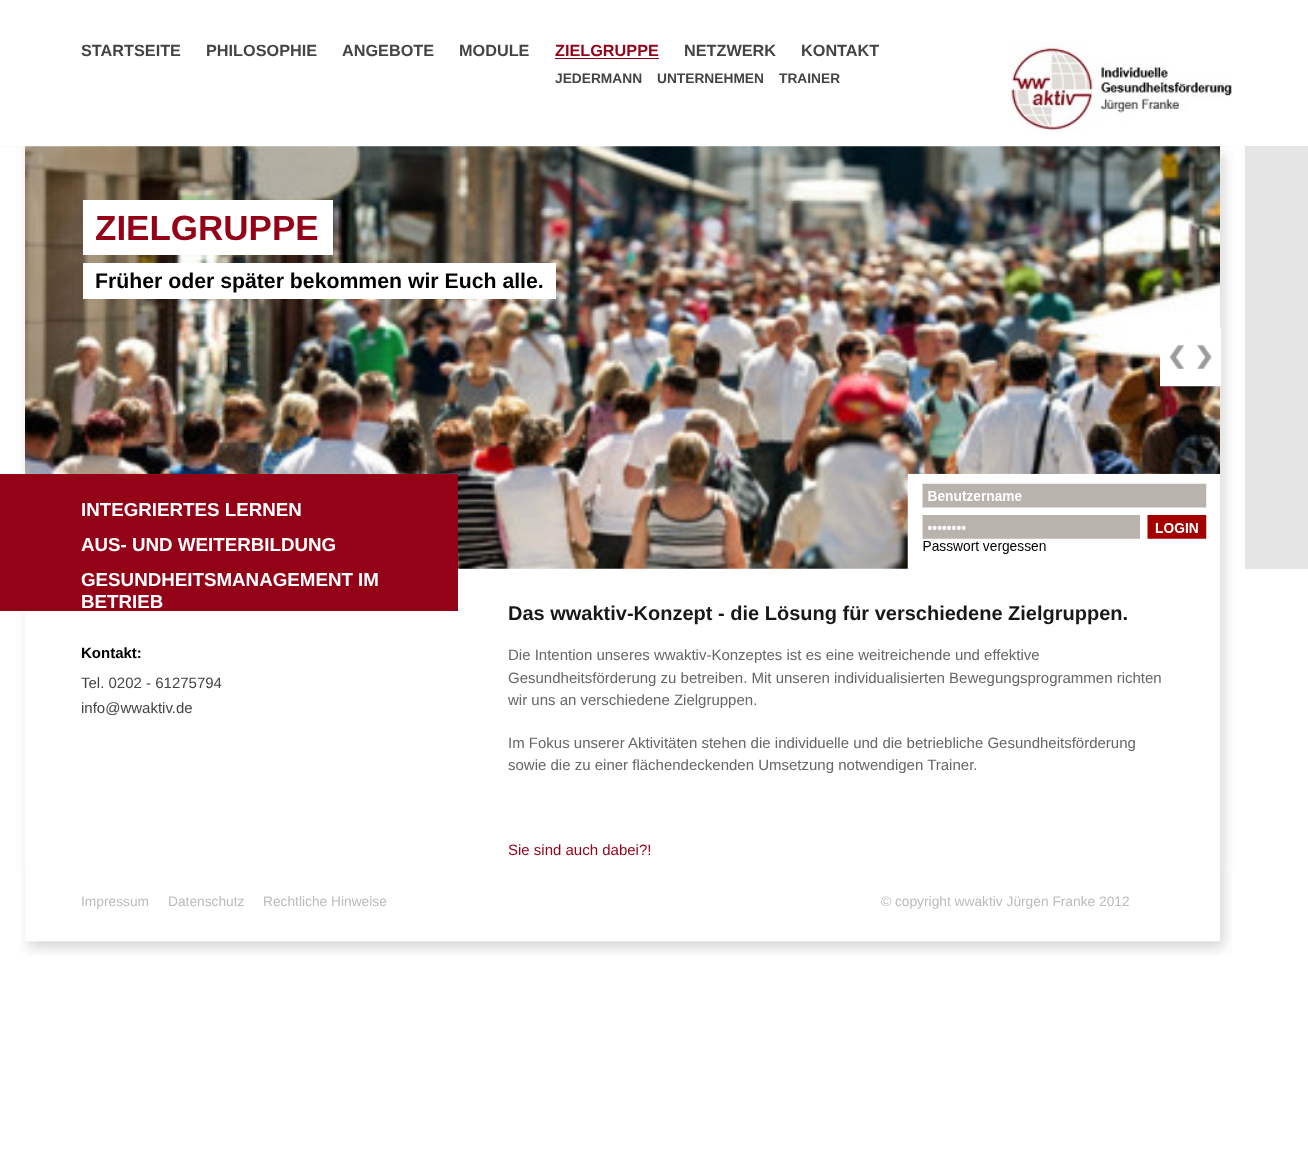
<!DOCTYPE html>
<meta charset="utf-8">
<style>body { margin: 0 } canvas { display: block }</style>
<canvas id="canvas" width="1308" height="1164"></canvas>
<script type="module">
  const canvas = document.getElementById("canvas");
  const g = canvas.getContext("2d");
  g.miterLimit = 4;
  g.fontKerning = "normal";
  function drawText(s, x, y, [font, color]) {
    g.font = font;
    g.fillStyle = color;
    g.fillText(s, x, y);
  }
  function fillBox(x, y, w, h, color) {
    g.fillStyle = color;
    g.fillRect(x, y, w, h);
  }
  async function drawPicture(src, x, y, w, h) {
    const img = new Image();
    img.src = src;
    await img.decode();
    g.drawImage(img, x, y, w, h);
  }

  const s1 = ["bold 16.25px Liberation Sans", "#444444"];
  const s2 = ["bold 16.25px Liberation Sans", "#940217"];
  const s3 = ["bold 13.75px Liberation Sans", "#444444"];
  const s4 = ["bold 35px Liberation Sans", "#940217"];
  const s5 = ["bold 21.25px Liberation Sans", "#000000"];
  const s6 = ["bold 15px Liberation Sans", "#000000"];
  const s7 = ["15px Liberation Sans", "#444444"];
  const s8 = ["bold 20px Liberation Sans", "#1A171B"];
  const s9 = ["15px Liberation Sans", "#666666"];
  const s10 = ["15px Liberation Sans", "#940217"];
  const s11 = ["bold 18.75px Liberation Sans", "#FFFFFF"];
  const s12 = ["13.75px Liberation Sans", "#BBBBBB"];

  fillBox(0, 0, 1308, 1164, "#FFFFFF");
  fillBox(0, 146, 1308, 423, "#E5E5E5");
  drawText("STARTSEITE", 81, 56, s1);
  drawText("PHILOSOPHIE", 206, 56, s1);
  drawText("ANGEBOTE", 342, 56, s1);
  drawText("MODULE", 459, 56, s1);
  drawText("ZIELGRUPPE", 555, 56, s2);
  fillBox(555, 58, 104, 1, "#940217");
  drawText("JEDERMANN", 555, 83, s3);
  drawText("UNTERNEHMEN", 657, 83, s3);
  drawText("TRAINER", 779, 83, s3);
  drawText("NETZWERK", 684, 56, s1);
  drawText("KONTAKT", 801, 56, s1);
  await drawPicture("pic1.png", 1008, 41, 224, 92);
  await drawPicture("pic2.png", 0, 146, 1245, 726);
  await drawPicture("pic3.png", 1220, 146, 23, 13);
  await drawPicture("pic4.png", 25, 146, 1195, 423);
  fillBox(83, 200, 250, 55, "#FFFFFF");
  drawText("ZIELGRUPPE", 95, 240, s4);
  fillBox(83, 263, 473, 36, "#FFFFFF");
  drawText("Früher oder später bekommen wir Euch alle.", 95, 288, s5);
  await drawPicture("pic5.png", 1160, 344, 30, 43);
  await drawPicture("pic6.png", 1190, 327, 32, 60);
  drawText("Kontakt:", 81, 658, s6);
  drawText("Tel. 0202 - 61275794", 81, 688, s7);
  drawText("info@wwaktiv.de", 81, 713, s7);
  drawText("Das wwaktiv-Konzept - die Lösung für verschiedene Zielgruppen.", 508, 620, s8);
  drawText("Die Intention unseres wwaktiv-Konzeptes ist es eine weitreichende und effektive", 508, 660, s9);
  drawText("Gesundheitsförderung zu betreiben. Mit unseren individualisierten Bewegungsprogrammen richten", 508, 683, s9);
  drawText("wir uns an verschiedene Zielgruppen.", 508, 705, s9);
  drawText("Im Fokus unserer Aktivitäten stehen die individuelle und die betriebliche Gesundheitsförderung", 508, 748, s9);
  drawText("sowie die zu einer flächendeckenden Umsetzung notwendigen Trainer.", 508, 770, s9);
  drawText("Sie sind auch dabei?!", 508, 855, s10);
  fillBox(0, 474, 458, 137, "#940217");
  drawText("INTEGRIERTES LERNEN", 81, 516, s11);
  drawText("AUS- UND WEITERBILDUNG", 81, 551, s11);
  drawText("GESUNDHEITSMANAGEMENT IM", 81, 586, s11);
  drawText("BETRIEB", 81, 608, s11);
  fillBox(1219, 569, 1, 30, "#FFFFFF");
  await drawPicture("pic7.png", 907, 473, 313, 96);
  await drawPicture("pic8.png", 20, 871, 1212, 85);
  drawText("Impressum", 81, 906, s12);
  drawText("Datenschutz", 168, 906, s12);
  drawText("Rechtliche Hinweise", 263, 906, s12);
  drawText("© copyright wwaktiv Jürgen Franke 2012", 881, 906, s12);
</script>
